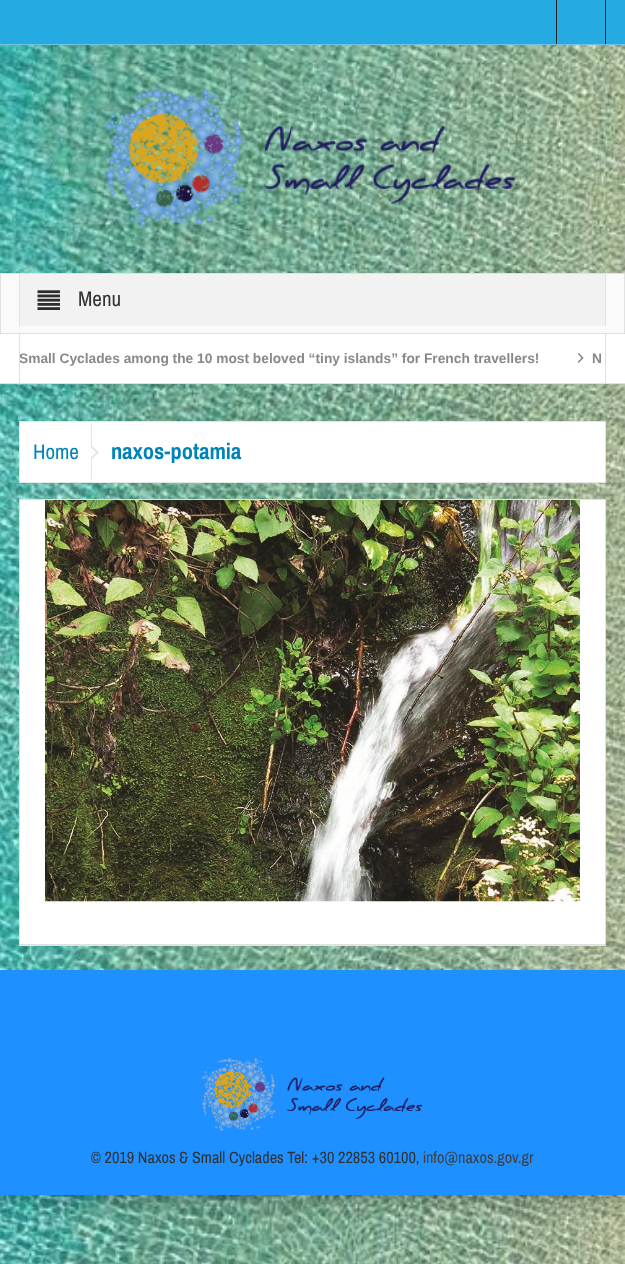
<!DOCTYPE html>
<meta charset="utf-8">
<style>body { margin: 0 } canvas { display: block }</style>
<canvas id="canvas" width="625" height="1264"></canvas>
<script type="module">
  const canvas = document.getElementById("canvas");
  const g = canvas.getContext("2d");
  g.miterLimit = 4;
  g.fontKerning = "normal";
  function drawText(s, x, y, [font, color]) {
    g.font = font;
    g.fillStyle = color;
    g.fillText(s, x, y);
  }
  function fillBox(x, y, w, h, color) {
    g.fillStyle = color;
    g.fillRect(x, y, w, h);
  }
  async function drawPicture(src, x, y, w, h) {
    const img = new Image();
    img.src = src;
    await img.decode();
    g.drawImage(img, x, y, w, h);
  }

  const s1 = ["21px Archivo Narrow", "#313131"];
  const s2 = ["bold 13.75px Liberation Sans", "#888888"];
  const s3 = ["21px Archivo Narrow", "#0083B9"];
  const s4 = ["bold 22.5px Archivo Narrow", "#0083B9"];
  const s5 = ["16.25px Archivo Narrow", "#313131"];
  const s6 = ["16.25px Archivo Narrow", "#3F3F3F"];

  fillBox(0, 0, 625, 1264, "#FFFFFF");
  await drawPicture("pic1.png", 0, 45, 625, 1219);
  g.save();
  g.beginPath();
  g.rect(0, 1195, 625, 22);
  g.clip();
  g.fillStyle = "rgba(0, 0, 0, 0.44)";
  g.filter = "blur(13px)";
  g.beginPath();
  g.rect(0, 0, 625, 1195);
  g.fill();
  g.filter = "none";
  g.restore();
  fillBox(0, 0, 625, 44, "#25AAE1");
  fillBox(0, 44, 625, 1, "#74C0E0");
  fillBox(605, 0, 1, 44, "#222222");
  fillBox(556, 0, 1, 44, "#222222");
  await drawPicture("pic2.png", 105, 89, 411, 138);
  g.fillStyle = "#FAFAFA";
  g.beginPath();
  g.rect(0.5, 273.5, 624, 60);
  g.fill();
  g.strokeStyle = "#E1E1E1";
  g.stroke();
  fillBox(20, 274, 585, 52, "#F2F2F2");
  fillBox(605, 274, 1, 52, "#E1E1E1");
  fillBox(19, 274, 1, 52, "#E1E1E1");
  await drawPicture("pic3.png", 37, 290, 23, 20);
  drawText("Menu", 78, 306, s1);
  fillBox(0, 334, 625, 49, "#FFFFFF");
  fillBox(0, 383, 625, 1, "#E1E1E1");
  fillBox(605, 334, 1, 49, "#E1E1E1");
  fillBox(19, 334, 1, 49, "#E1E1E1");
  g.save();
  g.beginPath();
  g.rect(20, 334, 583, 49);
  g.clip();
  drawText("Small Cyclades among the 10 most beloved “tiny islands” for French travellers!", 19, 363, s2);
  g.restore();
  await drawPicture("pic4.png", 577, 353, 7, 10);
  drawText("N", 592, 363, s2);
  g.fillStyle = "#FFFFFF";
  g.beginPath();
  g.rect(19.5, 421.5, 586, 61);
  g.fill();
  g.strokeStyle = "#E5E5E5";
  g.stroke();
  fillBox(91, 423, 1, 58, "#E5E5E5");
  drawText("Home", 33, 459, s3);
  g.fillStyle = "#E5E5E5";
  g.beginPath();
  g.moveTo(91, 460);
  g.lineTo(91, 445);
  g.lineTo(99, 452.5);
  g.closePath();
  g.fill();
  g.fillStyle = "#FFFFFF";
  g.beginPath();
  g.moveTo(91, 457.5);
  g.lineTo(91, 447.5);
  g.lineTo(96, 452.5);
  g.closePath();
  g.fill();
  drawText("naxos-potamia", 111, 459, s4);
  fillBox(19, 945, 587, 1, "#E5E5E5");
  g.fillStyle = "#FFFFFF";
  g.beginPath();
  g.rect(19.5, 499.5, 586, 445);
  g.fill();
  g.strokeStyle = "#E1E1E1";
  g.stroke();
  await drawPicture("pic5.png", 45, 500, 535, 402);
  fillBox(0, 970, 625, 225, "#1E90FF");
  await drawPicture("pic6.png", 201, 1057, 222, 74);
  drawText("© 2019 Naxos & Small Cyclades Tel: +30 22853 60100,", 91, 1163, s5);
  drawText("info@naxos.gov.gr", 423, 1163, s6);
</script>
